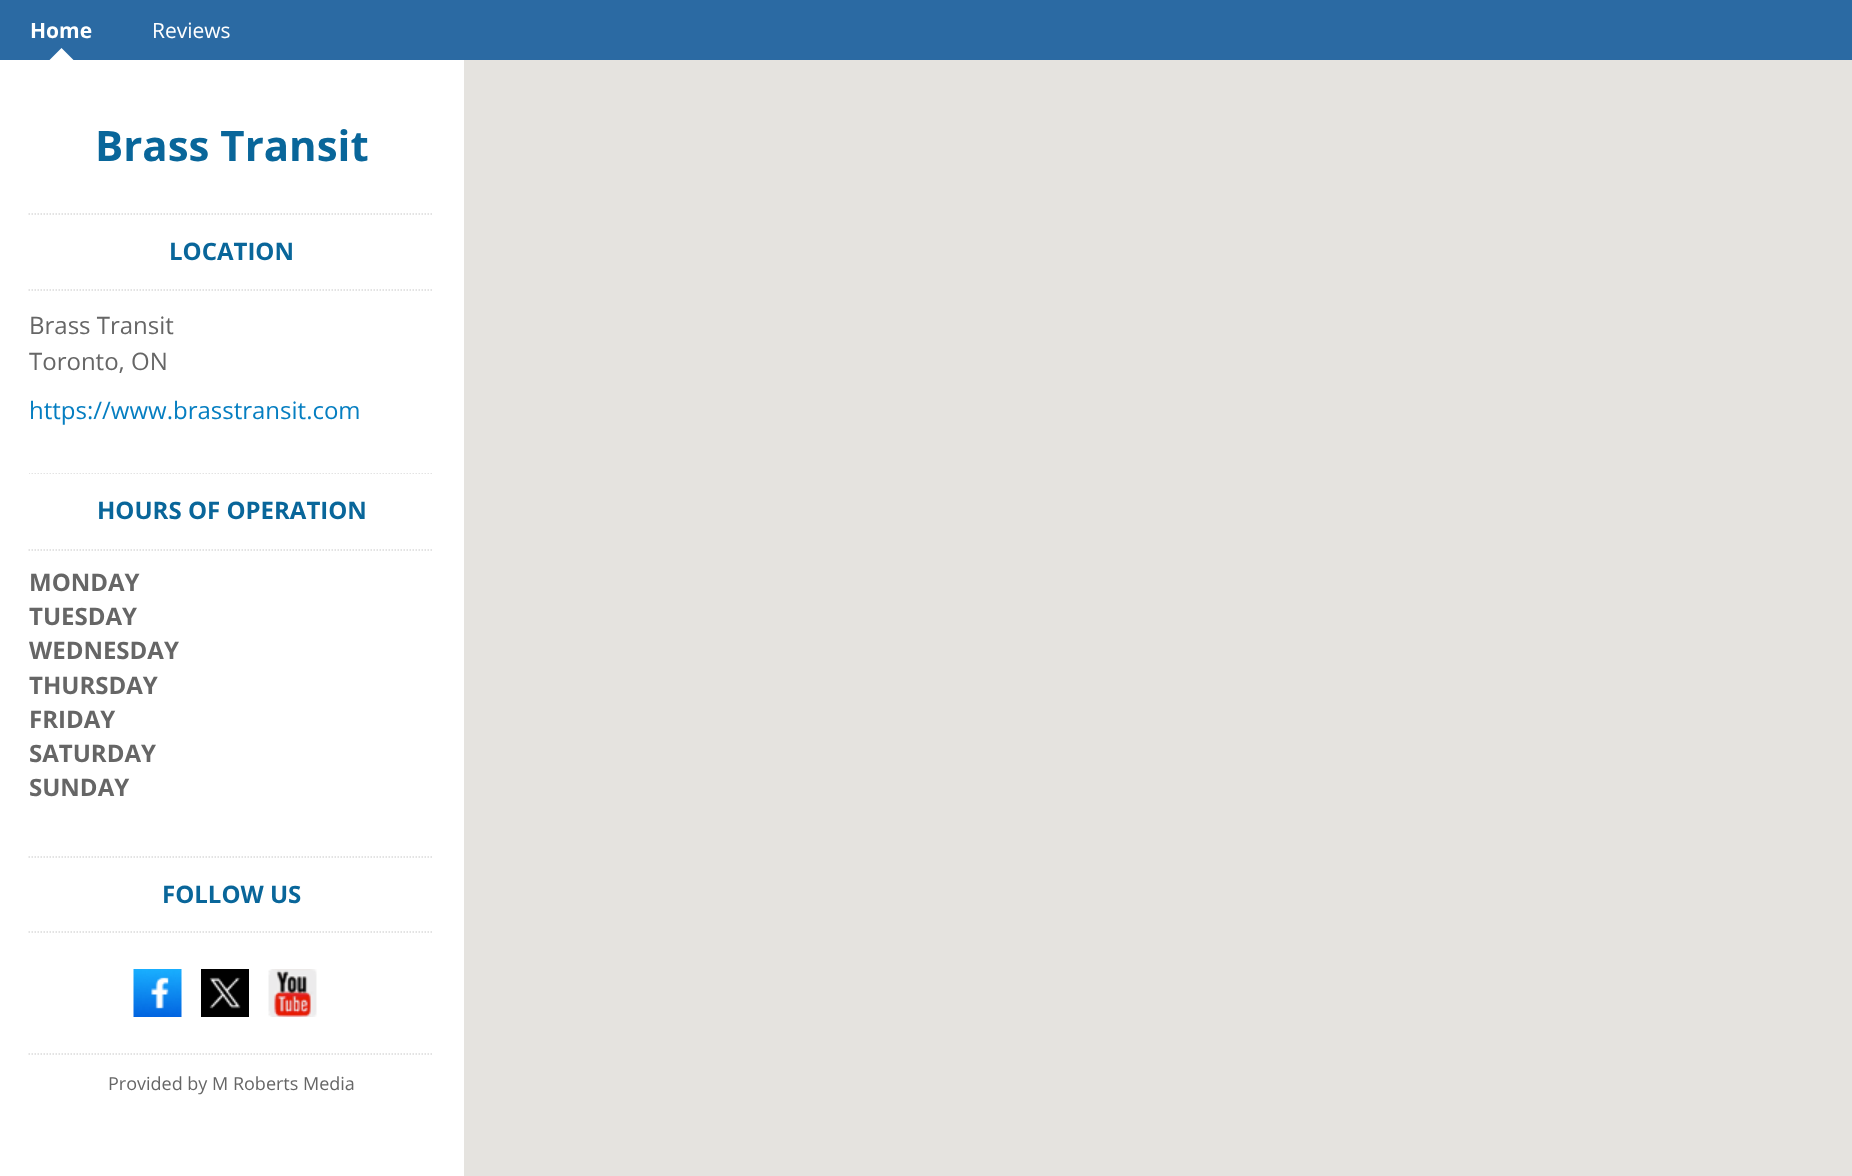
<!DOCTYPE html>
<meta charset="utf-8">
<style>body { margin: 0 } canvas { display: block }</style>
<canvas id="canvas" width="1852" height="1176"></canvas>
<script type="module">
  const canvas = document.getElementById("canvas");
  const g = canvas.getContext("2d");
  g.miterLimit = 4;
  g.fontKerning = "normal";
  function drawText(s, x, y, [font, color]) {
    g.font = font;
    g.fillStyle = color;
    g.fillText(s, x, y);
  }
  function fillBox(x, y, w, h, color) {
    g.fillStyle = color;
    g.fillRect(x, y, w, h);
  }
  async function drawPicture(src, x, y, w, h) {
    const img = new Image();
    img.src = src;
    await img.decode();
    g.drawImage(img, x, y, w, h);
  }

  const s1 = ["bold 21px Open Sans", "#FFFFFF"];
  const s2 = ["21px Open Sans", "#FFFFFF"];
  const s3 = ["bold 42px Open Sans", "#09669A"];
  const s4 = ["bold 24px Open Sans", "#09669A"];
  const s5 = ["24px Open Sans", "#666666"];
  const s6 = ["24px Open Sans", "#057EC1"];
  const s7 = ["bold 24px Open Sans", "#666666"];
  const s8 = ["18px Open Sans", "#666666"];

  fillBox(0, 0, 1852, 1176, "#FFFFFF");
  fillBox(0, 0, 1852, 60, "#2B6AA3");
  drawText("Home", 30, 38, s1);
  g.beginPath();
  g.moveTo(73.5, 60);
  g.lineTo(49.5, 60);
  g.lineTo(61.5, 48);
  g.closePath();
  g.fill();
  drawText("Reviews", 152, 38, s2);
  drawText("Brass Transit", 95, 161, s3);
  g.beginPath();
  g.moveTo(28.5, 214);
  g.lineTo(433.5, 214);
  g.strokeStyle = "#DADADA";
  g.lineWidth = 1.5;
  g.setLineDash([1.5, 1.5]);
  g.stroke();
  g.beginPath();
  g.moveTo(28.5, 290);
  g.lineTo(433.5, 290);
  g.stroke();
  drawText("LOCATION", 169, 260, s4);
  drawText("Brass Transit", 29, 334, s5);
  drawText("Toronto, ON", 29, 370, s5);
  drawText("https://www.brasstransit.com", 29, 419, s6);
  g.save();
  g.beginPath();
  g.rect(29, 473, 405, 339);
  g.clip();
  g.beginPath();
  g.moveTo(28.5, 473);
  g.lineTo(433.5, 473);
  g.stroke();
  g.restore();
  g.beginPath();
  g.moveTo(28.5, 550);
  g.lineTo(433.5, 550);
  g.stroke();
  drawText("HOURS OF OPERATION", 97, 519, s4);
  drawText("MONDAY", 29, 591, s7);
  drawText("TUESDAY", 29, 625, s7);
  drawText("WEDNESDAY", 29, 659, s7);
  drawText("THURSDAY", 29, 694, s7);
  drawText("FRIDAY", 29, 728, s7);
  drawText("SATURDAY", 29, 762, s7);
  drawText("SUNDAY", 29, 796, s7);
  g.beginPath();
  g.moveTo(28.5, 857);
  g.lineTo(433.5, 857);
  g.stroke();
  g.beginPath();
  g.moveTo(28.5, 932);
  g.lineTo(433.5, 932);
  g.stroke();
  drawText("FOLLOW US", 162, 903, s4);
  await drawPicture("pic1.png", 133, 969, 49, 48);
  await drawPicture("pic2.png", 201, 969, 48, 48);
  await drawPicture("pic3.png", 268, 969, 49, 48);
  g.beginPath();
  g.moveTo(28.5, 1054);
  g.lineTo(433.5, 1054);
  g.stroke();
  drawText("Provided by M Roberts Media", 108, 1090, s8);
  fillBox(464, 60, 1388, 1116, "#E5E3DF");
</script>
